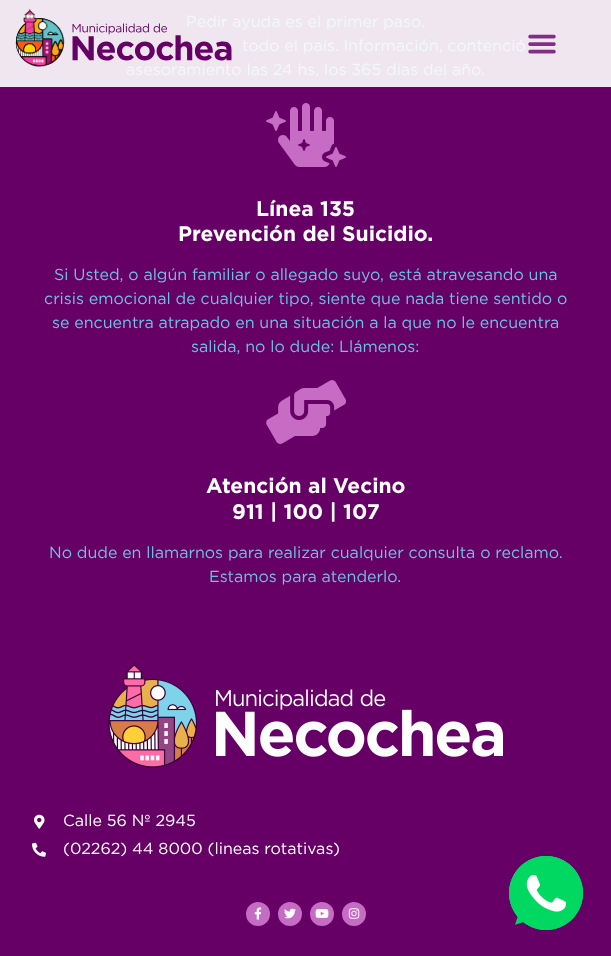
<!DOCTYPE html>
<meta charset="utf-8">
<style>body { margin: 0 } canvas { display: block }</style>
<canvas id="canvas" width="611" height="956"></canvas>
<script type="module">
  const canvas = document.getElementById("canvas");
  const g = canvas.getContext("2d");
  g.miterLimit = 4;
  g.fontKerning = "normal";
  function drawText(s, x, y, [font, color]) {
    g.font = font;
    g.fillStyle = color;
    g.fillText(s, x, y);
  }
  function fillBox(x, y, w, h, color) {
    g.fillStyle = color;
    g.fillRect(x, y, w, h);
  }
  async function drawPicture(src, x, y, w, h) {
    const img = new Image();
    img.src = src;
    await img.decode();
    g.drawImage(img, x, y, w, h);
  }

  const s1 = ["16px Gotham", "#F1F9FC"];
  const s2 = ["bold 21px Gotham", "#FFFFFF"];
  const s3 = ["16px Gotham", "#6EC1E4"];
  const s4 = ["16px Gotham", "#FFFFFF"];

  fillBox(0, 0, 611, 956, "#670066");
  fillBox(0, 0, 611, 87, "#F0E6F0");
  drawText("Pedir ayuda es el primer paso.", 186, 27, s1);
  drawText("f", 93, 51, s1);
  drawText("asesoramiento las 24 hs, los 365 días del año.", 126, 75, s1);
  await drawPicture("pic1.png", 15, 9, 217, 58);
  await drawPicture("pic2.png", 528, 34, 28, 20);
  drawText("todo el país. Información, contenció", 242, 51, s1);
  await drawPicture("pic3.png", 266, 103, 80, 64);
  drawText("Línea 135", 256, 216, s2);
  drawText("Prevención del Suicidio.", 178, 241, s2);
  drawText("Si Usted, o algún familiar o allegado suyo, está atravesando una", 54, 280, s3);
  drawText("crisis emocional de cualquier tipo, siente que nada tiene sentido o", 44, 304, s3);
  drawText("se encuentra atrapado en una situación a la que no le encuentra", 52, 328, s3);
  drawText("salida, no lo dude: Llámenos:", 191, 352, s3);
  await drawPicture("pic4.png", 266, 380, 80, 64);
  drawText("Atención al Vecino", 206, 493, s2);
  drawText("911 | 100 | 107", 232, 519, s2);
  drawText("No dude en llamarnos para realizar cualquier consulta o reclamo.", 49, 558, s3);
  drawText("Estamos para atenderlo.", 209, 582, s3);
  await drawPicture("pic5.png", 108, 662, 395, 106);
  await drawPicture("pic6.png", 34, 814, 11, 15);
  drawText("Calle 56 Nº 2945", 63, 826, s4);
  await drawPicture("pic7.png", 32, 842, 14, 15);
  drawText("(02262) 44 8000 (lineas rotativas)", 63, 854, s4);
  g.fillStyle = "#C66CC5";
  g.beginPath();
  g.arc(258, 914, 12, 0, Math.PI * 2);
  g.fill();
  await drawPicture("pic8.png", 254, 907, 8, 13);
  g.beginPath();
  g.arc(290, 914, 12, 0, Math.PI * 2);
  g.fill();
  await drawPicture("pic9.png", 284, 908, 12, 11);
  g.beginPath();
  g.arc(322, 914, 12, 0, Math.PI * 2);
  g.fill();
  await drawPicture("pic10.png", 315, 909, 14, 9);
  g.beginPath();
  g.arc(354, 914, 12, 0, Math.PI * 2);
  g.fill();
  await drawPicture("pic11.png", 348, 908, 12, 11);
  await drawPicture("pic12.png", 509, 856, 74, 74);
</script>
